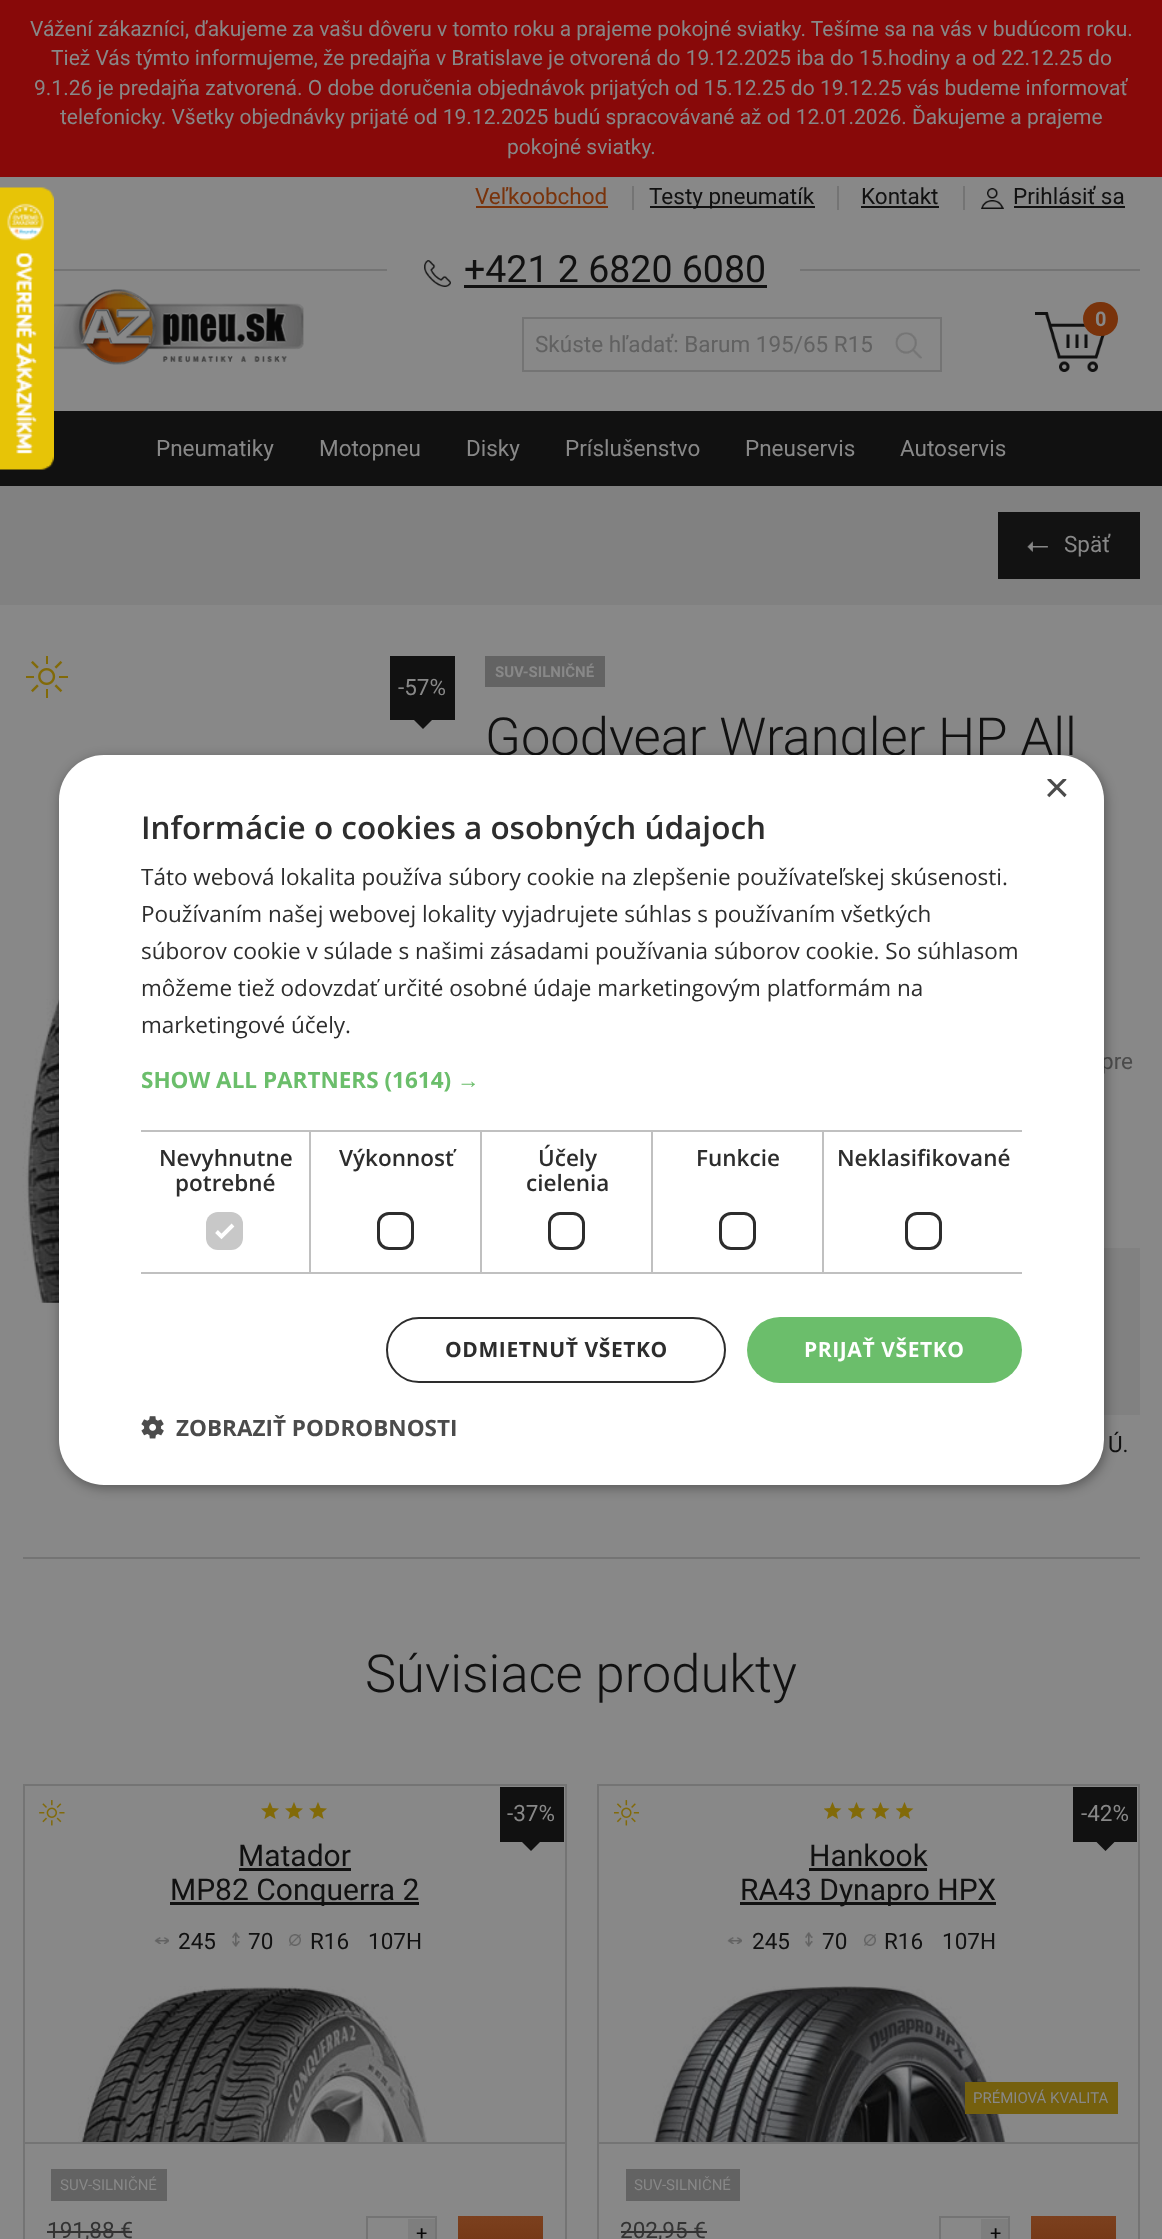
<!DOCTYPE html>
<meta charset="utf-8">
<style>body { margin: 0 } canvas { display: block }</style>
<canvas id="canvas" width="1162" height="2239"></canvas>
<script type="module">
  const canvas = document.getElementById("canvas");
  const g = canvas.getContext("2d");
  g.miterLimit = 4;
  g.fontKerning = "normal";
  function drawText(s, x, y, [font, color]) {
    g.font = font;
    g.fillStyle = color;
    g.fillText(s, x, y);
  }
  function fillBox(x, y, w, h, color) {
    g.fillStyle = color;
    g.fillRect(x, y, w, h);
  }
  function fillRounded(x, y, w, h, r, color) {
    g.fillStyle = color;
    g.beginPath();
    g.roundRect(x, y, w, h, r);
    g.fill();
  }
  async function drawPicture(src, x, y, w, h) {
    const img = new Image();
    img.src = src;
    await img.decode();
    g.drawImage(img, x, y, w, h);
  }
  let gradient;

  const s1 = ["21px Roboto", "#888888"];
  const s2 = ["22.5px Roboto", "#79330B"];
  const s3 = ["22.5px Roboto", "#111111"];
  const s4 = ["37.5px Roboto", "#111111"];
  const s5 = ["bold 20px Roboto", "#888888"];
  const s6 = ["22.5px Roboto", "#616161"];
  const s7 = ["22.5px Roboto", "#888888"];
  const s8 = ["bold 15px Roboto", "#888888"];
  const s9 = ["300 52.5px Roboto", "#111111"];
  const s10 = ["22.5px Roboto", "#4B4B4B"];
  const s11 = ["44px Liberation Sans", "#4B4B4B"];
  const s12 = ["600 31.5px Open Sans", "#2D2D2D"];
  const s13 = ["22.5px Open Sans", "#2D2D2D"];
  const s14 = ["bold 22.5px Open Sans", "#6BBE6B"];
  const s15 = ["bold 22.5px Liberation Sans", "#6BBE6B"];
  const s16 = ["600 22.5px Open Sans", "#2D2D2D"];
  const s17 = ["bold 21px Open Sans", "#2D2D2D"];
  const s18 = ["bold 21px Open Sans", "#FFFFFF"];
  const s19 = ["bold 22.5px Open Sans", "#4B4B4B"];
  const s20 = ["30px Roboto", "#111111"];
  const s21 = ["15px Roboto", "#888888"];
  const s22 = ["22.5px Roboto", "#333333"];
  const s23 = ["20px Roboto", "#090909"];

  fillBox(0, 0, 1162, 2239, "#888888");
  fillBox(0, 0, 1162, 177, "#880909");
  drawText("Vážení zákazníci, ďakujeme za vašu dôveru v tomto roku a prajeme pokojné sviatky. Tešíme sa na vás v budúcom roku.", 30, 36, s1);
  drawText("Tiež Vás týmto informujeme, že predajňa v Bratislave je otvorená do 19.12.2025 iba do 15.hodiny a od 22.12.25 do", 51, 65, s1);
  drawText("9.1.26 je predajňa zatvorená. O dobe doručenia objednávok prijatých od 15.12.25 do 19.12.25 vás budeme informovať", 34, 95, s1);
  drawText("telefonicky. Všetky objednávky prijaté od 19.12.2025 budú spracovávané až od 12.01.2026. Ďakujeme a prajeme", 60, 124, s1);
  drawText("pokojné sviatky.", 507, 154, s1);
  fillBox(0, 411, 1162, 75, "#111111");
  await drawPicture("pic1.png", 0, 187, 54, 283);
  drawText("Veľkoobchod", 475, 204, s2);
  fillBox(476, 206, 132, 2, "#79330B");
  fillBox(632, 186, 2, 24, "#747474");
  fillBox(650, 206, 165, 2, "#111111");
  drawText("Testy pneumatík", 649, 204, s3);
  fillBox(837, 186, 2, 24, "#747474");
  drawText("Kontakt", 861, 204, s3);
  fillBox(861, 206, 78, 2, "#111111");
  fillBox(963, 186, 2, 24, "#747474");
  await drawPicture("pic2.png", 981, 188, 23, 21);
  drawText("Prihlásiť sa", 1013, 204, s3);
  fillBox(1014, 206, 111, 2, "#111111");
  fillBox(54, 269, 1086, 2, "#747474");
  fillBox(387, 269, 413, 2, "#888888");
  await drawPicture("pic3.png", 424, 260, 27, 27);
  drawText("+421 2 6820 6080", 464, 282, s4);
  fillBox(464, 285, 303, 3, "#111111");
  await drawPicture("pic4.png", 54, 289, 250, 76);
  await drawPicture("pic5.png", 1035, 312, 70, 60);
  fillRounded(1083, 302, 35, 34, 17, "#79330B");
  drawText("0", 1095, 326, s5);
  g.strokeStyle = "#747474";
  g.lineWidth = 2;
  g.strokeRect(523, 318, 418, 53);
  drawText("Skúste hľadať: Barum 195/65 R15", 535, 352, s6);
  await drawPicture("pic6.png", 895, 332, 27, 27);
  drawText("Pneumatiky", 156, 456, s7);
  drawText("Motopneu", 319, 456, s7);
  drawText("Disky", 466, 456, s7);
  drawText("Príslušenstvo", 565, 456, s7);
  drawText("Pneuservis", 745, 456, s7);
  drawText("Autoservis", 900, 456, s7);
  fillBox(0, 486, 1162, 119, "#818181");
  fillBox(998, 512, 142, 67, "#121212");
  await drawPicture("pic7.png", 1027, 541, 21, 11);
  drawText("Späť", 1064, 552, s7);
  await drawPicture("pic8.png", 26, 656, 42, 42);
  fillBox(390, 656, 65, 64, "#111111");
  drawText("-57%", 398, 695, s7);
  g.fillStyle = "#111111";
  g.beginPath();
  g.moveTo(414, 720);
  g.lineTo(432, 720);
  g.lineTo(423, 729);
  g.closePath();
  g.fill();
  await drawPicture("pic9.png", 22, 856, 37, 447);
  fillBox(23, 1557, 1117, 2, "#747474");
  fillBox(485, 656, 120, 31, "#636363");
  drawText("SUV-SILNIČNÉ", 495, 677, s8);
  drawText("Goodyear Wrangler HP All", 485, 755, s9);
  drawText("pre", 1101, 1069, s10);
  fillBox(1104, 1248, 36, 167, "#818181");
  drawText("Ú.", 1108, 1452, s3);
  g.fillStyle = "rgba(0, 0, 0, 0.35)";
  g.filter = "blur(6px)";
  g.beginPath();
  g.roundRect(60, 758, 1046, 730, 45);
  g.fill();
  g.filter = "none";
  fillRounded(59, 755, 1045, 730, 45, "#FFFFFF");
  g.save();
  g.beginPath();
  g.rect(1044, 779, 23, 22);
  g.clip();
  drawText("×", 1044, 802, s11);
  g.restore();
  drawText("Informácie o cookies a osobných údajoch", 141, 839, s12);
  drawText("Táto webová lokalita používa súbory cookie na zlepšenie používateľskej skúsenosti.", 141, 885, s13);
  drawText("Používaním našej webovej lokality vyjadrujete súhlas s používaním všetkých", 141, 922, s13);
  drawText("súborov cookie v súlade s našimi zásadami používania súborov cookie. So súhlasom", 141, 959, s13);
  drawText("môžeme tiež odovzdať určité osobné údaje marketingovým platformám na", 141, 996, s13);
  drawText("marketingové účely.", 141, 1033, s13);
  drawText("SHOW ALL PARTNERS (1614)", 141, 1088, s14);
  drawText("→", 457, 1088, s15);
  fillBox(141, 1130, 881, 2, "#C0C0C0");
  fillBox(309, 1130, 2, 144, "#C0C0C0");
  fillBox(141, 1272, 170, 2, "#C0C0C0");
  drawText("Nevyhnutne", 159, 1166, s16);
  drawText("potrebné", 175, 1191, s16);
  fillRounded(206, 1212, 37, 38, 12, "#C8C8C8");
  g.beginPath();
  g.moveTo(216.5, 1231.5);
  g.lineTo(221.5, 1236.5);
  g.lineTo(233, 1225);
  g.strokeStyle = "#FFFFFF";
  g.lineWidth = 3.9;
  g.stroke();
  fillBox(480, 1130, 2, 144, "#C0C0C0");
  fillBox(311, 1272, 171, 2, "#C0C0C0");
  drawText("Výkonnosť", 339, 1166, s16);
  g.beginPath();
  g.roundRect(378.5, 1213.5, 34, 35, 10.5);
  g.strokeStyle = "#2D2D2D";
  g.lineWidth = 3;
  g.stroke();
  fillBox(651, 1130, 2, 144, "#C0C0C0");
  fillBox(482, 1272, 171, 2, "#C0C0C0");
  drawText("Účely", 538, 1166, s16);
  drawText("cielenia", 526, 1191, s16);
  g.beginPath();
  g.roundRect(549.5, 1213.5, 34, 35, 10.5);
  g.stroke();
  fillBox(822, 1130, 2, 144, "#C0C0C0");
  fillBox(653, 1272, 369, 2, "#C0C0C0");
  drawText("Funkcie", 696, 1166, s16);
  g.beginPath();
  g.roundRect(720.5, 1213.5, 34, 35, 10.5);
  g.stroke();
  drawText("Neklasifikované", 837, 1166, s16);
  g.beginPath();
  g.roundRect(906.5, 1213.5, 34, 35, 10.5);
  g.stroke();
  g.beginPath();
  g.roundRect(387, 1318, 338, 64, 32);
  g.lineWidth = 2;
  g.stroke();
  g.letterSpacing = "0.6px";
  drawText("ODMIETNUŤ VŠETKO", 445, 1357, s17);
  fillRounded(747, 1317, 275, 66, 33, "#6BBE6B");
  drawText("PRIJAŤ VŠETKO", 804, 1357, s18);
  await drawPicture("pic10.png", 141, 1416, 23, 23);
  g.letterSpacing = "0px";
  drawText("ZOBRAZIŤ PODROBNOSTI", 176, 1436, s19);
  drawText("Súvisiace produkty", 365, 1692, s9);
  g.strokeStyle = "#747474";
  g.strokeRect(24, 1785, 542, 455);
  await drawPicture("pic11.png", 39, 1800, 26, 26);
  await drawPicture("pic12.png", 261, 1802, 18, 17);
  await drawPicture("pic12.png", 285, 1802, 18, 17);
  await drawPicture("pic12.png", 309, 1802, 18, 17);
  fillBox(500, 1787, 64, 55, "#111111");
  drawText("-37%", 507, 1821, s7);
  g.fillStyle = "#111111";
  g.beginPath();
  g.moveTo(522, 1842);
  g.lineTo(540, 1842);
  g.lineTo(531, 1851);
  g.closePath();
  g.fill();
  drawText("Matador", 238, 1866, s20);
  fillBox(239, 1868, 112, 3, "#111111");
  fillBox(170, 1902, 249, 3, "#111111");
  drawText("MP82 Conquerra 2", 170, 1900, s20);
  await drawPicture("pic13.png", 154, 1937, 15, 7);
  drawText("245", 178, 1949, s3);
  await drawPicture("pic14.png", 232, 1932, 8, 15);
  drawText("70", 248, 1949, s3);
  await drawPicture("pic15.png", 289, 1934, 12, 12);
  drawText("R16", 310, 1949, s3);
  drawText("107H", 368, 1949, s3);
  fillBox(24, 2142, 542, 2, "#747474");
  await drawPicture("pic16.png", 78, 1986, 349, 156);
  fillBox(51, 2169, 116, 32, "#636363");
  drawText("SUV-SILNIČNÉ", 60, 2190, s21);
  drawText("191,88 €", 47, 2238, s22);
  fillBox(47, 2231, 85, 2, "#333333");
  g.strokeRect(367, 2217, 69, 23);
  fillBox(408, 2219, 27, 20, "#7E7E7E");
  drawText("+", 416, 2240, s23);
  gradient = g.createLinearGradient(500, 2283, 500, 2216);
  gradient.addColorStop(0, "#692D0B");
  gradient.addColorStop(1, "#7C401E");
  g.fillStyle = gradient;
  g.fillRect(458, 2216, 85, 23);
  g.strokeRect(598, 1785, 541, 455);
  await drawPicture("pic17.png", 614, 1800, 25, 26);
  await drawPicture("pic18.png", 824, 1802, 18, 17);
  await drawPicture("pic18.png", 848, 1802, 18, 17);
  await drawPicture("pic18.png", 872, 1802, 18, 17);
  await drawPicture("pic18.png", 896, 1802, 18, 17);
  fillBox(1073, 1787, 64, 55, "#111111");
  drawText("-42%", 1081, 1821, s7);
  g.fillStyle = "#111111";
  g.beginPath();
  g.moveTo(1096.5, 1842);
  g.lineTo(1114.5, 1842);
  g.lineTo(1105.5, 1851);
  g.closePath();
  g.fill();
  drawText("Hankook", 809, 1866, s20);
  fillBox(809, 1868, 118, 3, "#111111");
  fillBox(740, 1902, 256, 3, "#111111");
  drawText("RA43 Dynapro HPX", 740, 1900, s20);
  await drawPicture("pic13.png", 727, 1937, 15, 7);
  drawText("245", 752, 1949, s3);
  await drawPicture("pic14.png", 805, 1932, 8, 15);
  drawText("70", 822, 1949, s3);
  await drawPicture("pic19.png", 864, 1934, 12, 12);
  drawText("R16", 884, 1949, s3);
  drawText("107H", 942, 1949, s3);
  fillBox(599, 2142, 540, 2, "#747474");
  await drawPicture("pic20.png", 653, 1986, 357, 156);
  fillBox(965, 2082, 153, 32, "#75600E");
  drawText("PRÉMIOVÁ KVALITA", 973, 2103, s21);
  fillBox(626, 2169, 114, 32, "#636363");
  drawText("SUV-SILNIČNÉ", 634, 2190, s21);
  drawText("202,95 €", 620, 2238, s22);
  fillBox(621, 2231, 86, 2, "#333333");
  g.strokeRect(940, 2217, 69, 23);
  fillBox(981, 2219, 27, 20, "#7E7E7E");
  drawText("+", 990, 2240, s23);
  gradient = g.createLinearGradient(1073, 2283, 1073, 2216);
  gradient.addColorStop(0, "#692D0B");
  gradient.addColorStop(1, "#7C401E");
  g.fillStyle = gradient;
  g.fillRect(1031, 2216, 85, 23);
</script>
